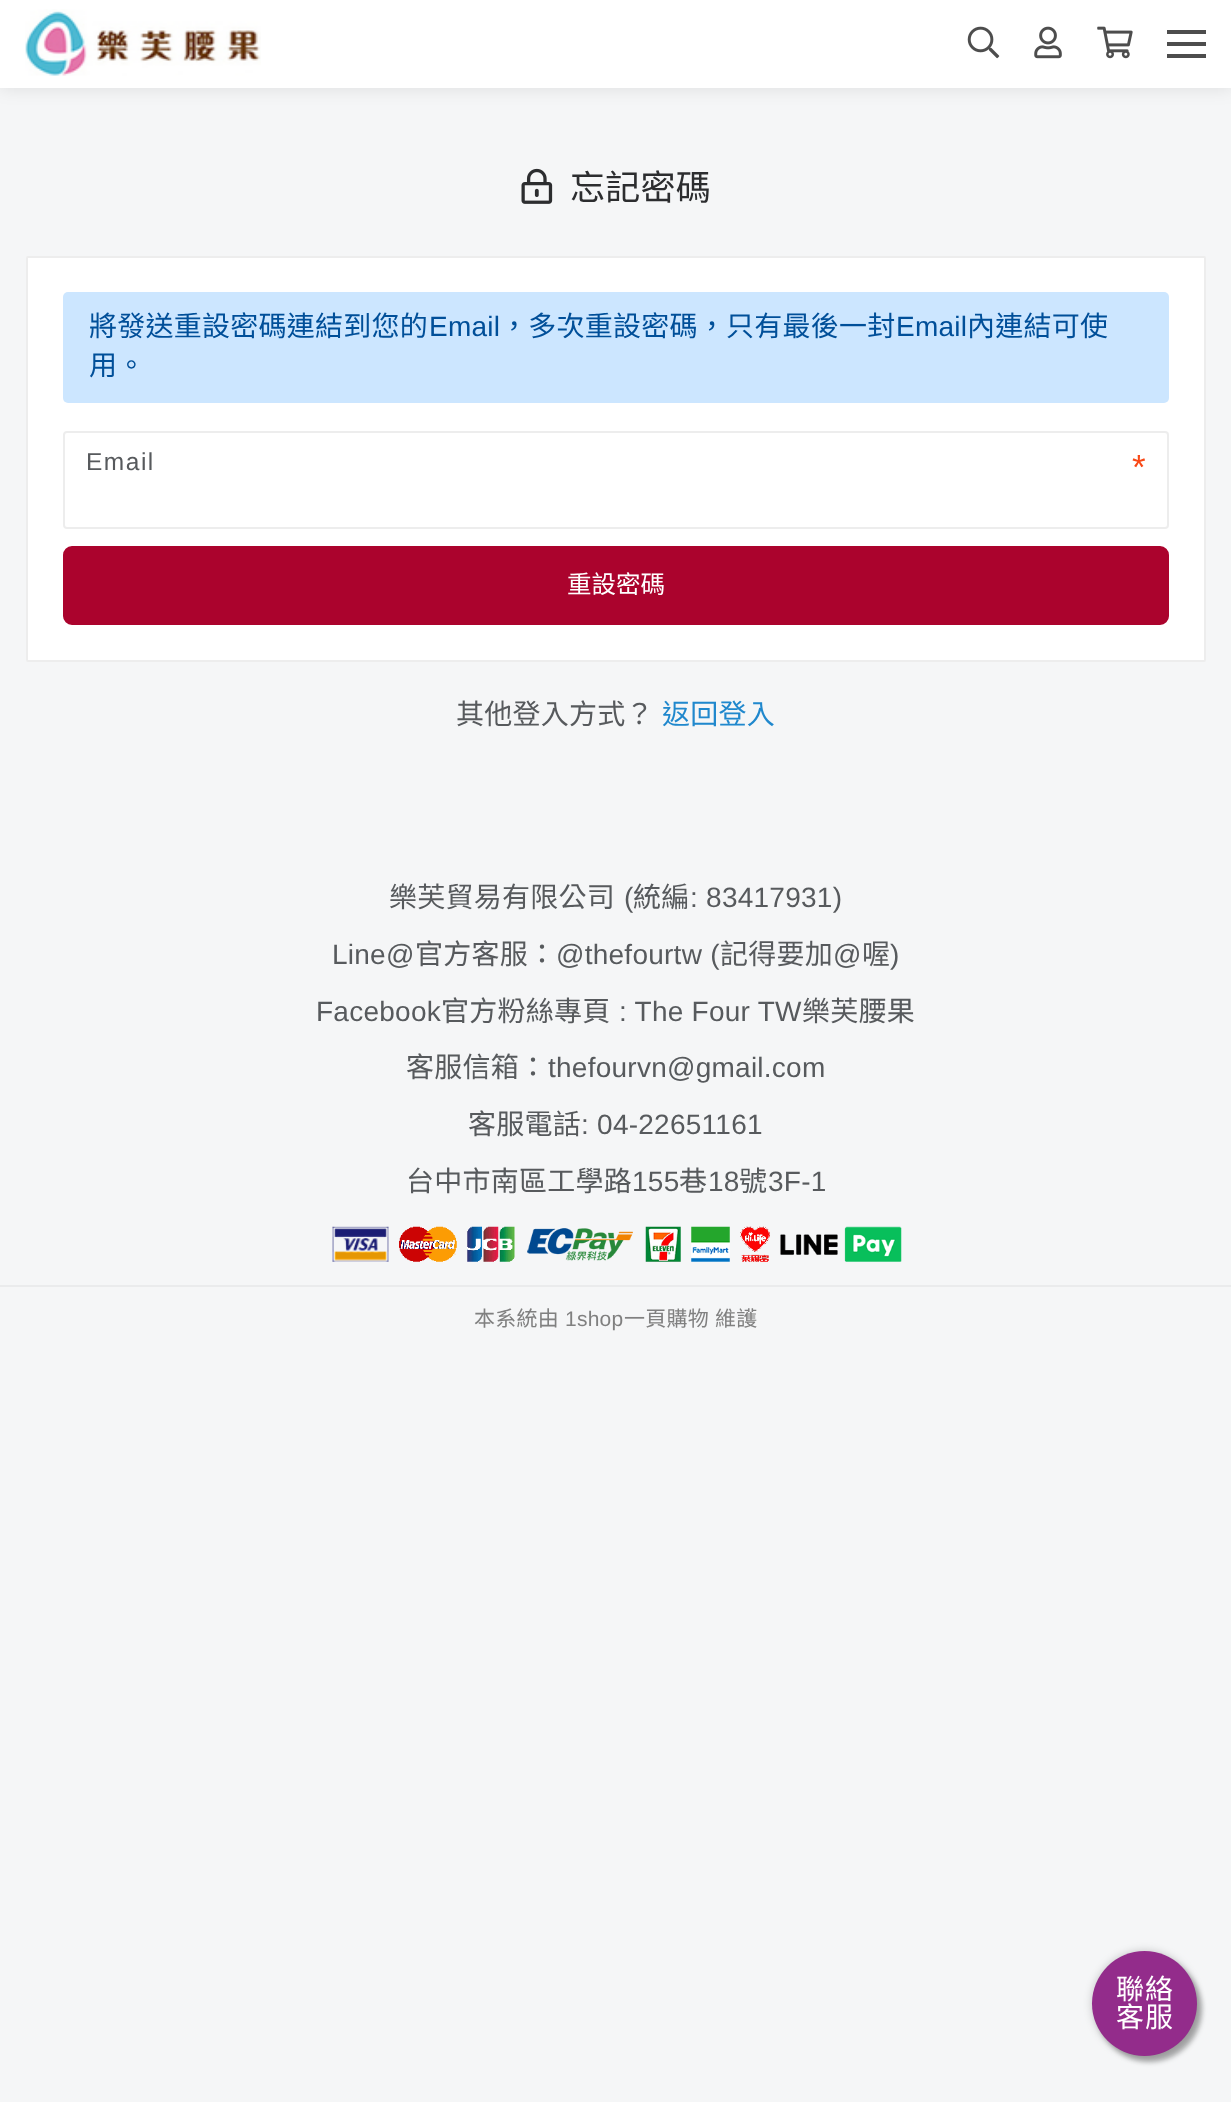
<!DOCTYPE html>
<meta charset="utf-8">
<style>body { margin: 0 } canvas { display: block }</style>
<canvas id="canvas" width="1231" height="2102"></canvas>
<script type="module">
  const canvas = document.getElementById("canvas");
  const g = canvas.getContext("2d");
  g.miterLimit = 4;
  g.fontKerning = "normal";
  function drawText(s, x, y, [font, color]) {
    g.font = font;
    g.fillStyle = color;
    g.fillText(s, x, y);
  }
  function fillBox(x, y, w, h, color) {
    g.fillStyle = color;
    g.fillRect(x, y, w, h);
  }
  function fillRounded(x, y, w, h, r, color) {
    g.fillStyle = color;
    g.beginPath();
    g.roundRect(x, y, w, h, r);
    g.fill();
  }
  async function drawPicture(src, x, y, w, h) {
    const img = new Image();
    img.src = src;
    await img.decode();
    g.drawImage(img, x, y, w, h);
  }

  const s1 = ["35px Noto Sans CJK TC", "#2C2D2F"];
  const s2 = ["28px Noto Sans CJK TC", "#004F99"];
  const s3 = ["28px Liberation Sans", "#004F99"];
  const s4 = ["24.5px Liberation Sans", "#575A5D"];
  const s5 = ["35px Liberation Sans", "#F94816"];
  const s6 = ["24.5px Noto Sans CJK TC", "#FFFFFF"];
  const s7 = ["28px Noto Sans CJK TC", "#575A5D"];
  const s8 = ["28px Noto Sans CJK TC", "#2088CD"];
  const s9 = ["28px Liberation Sans", "#575A5D"];
  const s10 = ["21px Noto Sans CJK TC", "#808080"];
  const s11 = ["21px Liberation Sans", "#808080"];
  const s12 = ["28px Noto Sans CJK TC", "#FFFFFF"];

  fillBox(0, 0, 1231, 2102, "#F5F6F7");
  g.fillStyle = "rgba(0, 0, 0, 0.1)";
  g.filter = "blur(9px)";
  g.beginPath();
  g.rect(0, 0, 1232, 88);
  g.fill();
  g.filter = "none";
  fillBox(0, 0, 1231, 88, "#FFFFFF");
  await drawPicture("pic1.png", 25, 9, 236, 67);
  await drawPicture("pic2.png", 967, 26, 33, 33);
  await drawPicture("pic3.png", 1034, 26, 28, 33);
  await drawPicture("pic4.png", 1097, 26, 36, 33);
  fillBox(1167, 30, 39, 4, "#4D4D4D");
  fillBox(1167, 42, 39, 4, "#4D4D4D");
  fillBox(1167, 54, 39, 4, "#4D4D4D");
  await drawPicture("pic5.png", 521, 168, 32, 36);
  g.letterSpacing = "0.25px";
  drawText("忘記密碼", 570, 200, s1);
  g.fillStyle = "#FFFFFF";
  g.beginPath();
  g.roundRect(27, 257, 1178, 404, 1);
  g.fill();
  g.strokeStyle = "#EDEDED";
  g.lineWidth = 2;
  g.stroke();
  fillRounded(63, 292, 1106, 111, 5, "#CCE6FF");
  drawText("將發送重設密碼連結到您的", 89, 336, s2);
  drawText("Email", 429, 336, s3);
  drawText("，多次重設密碼，只有最後一封", 500, 336, s2);
  drawText("Email", 896, 336, s3);
  drawText("內連結可使", 967, 336, s2);
  drawText("用。", 89, 375, s2);
  g.beginPath();
  g.roundRect(64, 432, 1104, 96, 3);
  g.stroke();
  g.letterSpacing = "1.5px";
  drawText("Email", 86, 470, s4);
  g.letterSpacing = "0.25px";
  drawText("*", 1132, 479, s5);
  g.fillStyle = "#AB032D";
  g.beginPath();
  g.roundRect(64, 547, 1104, 77, 8);
  g.fill();
  g.strokeStyle = "#AB032D";
  g.stroke();
  g.letterSpacing = "0px";
  drawText("重設密碼", 567, 593, s6);
  g.letterSpacing = "0.25px";
  drawText("其他登入方式？", 456, 724, s7);
  drawText("返回登入", 662, 724, s8);
  drawText("樂芙貿易有限公司", 389, 907, s7);
  drawText("(", 624, 907, s9);
  drawText("統編", 633, 907, s7);
  drawText(": 83417931)", 690, 907, s9);
  drawText("Line@", 332, 964, s9);
  drawText("官方客服：", 415, 964, s7);
  drawText("@thefourtw (", 556, 964, s9);
  drawText("記得要加", 720, 964, s7);
  drawText("@", 833, 964, s9);
  drawText("喔", 862, 964, s7);
  drawText(")", 890, 964, s9);
  drawText("Facebook", 316, 1021, s9);
  drawText("官方粉絲專頁", 441, 1021, s7);
  drawText(": The Four TW", 619, 1021, s9);
  drawText("樂芙腰果", 802, 1021, s7);
  drawText("客服信箱：", 406, 1077, s7);
  drawText("thefourvn@gmail.com", 548, 1077, s9);
  drawText("客服電話", 468, 1134, s7);
  drawText(": 04-22651161", 581, 1134, s9);
  drawText("台中市南區工學路", 406, 1191, s7);
  drawText("155", 632, 1191, s9);
  drawText("巷", 679, 1191, s7);
  drawText("18", 708, 1191, s9);
  drawText("號", 739, 1191, s7);
  drawText("3F-1", 768, 1191, s9);
  await drawPicture("pic6.png", 332, 1226, 57, 36);
  await drawPicture("pic7.png", 399, 1226, 58, 36);
  await drawPicture("pic8.png", 467, 1226, 48, 36);
  await drawPicture("pic9.png", 527, 1228, 106, 33);
  await drawPicture("pic10.png", 645, 1226, 36, 36);
  await drawPicture("pic11.png", 691, 1226, 39, 36);
  await drawPicture("pic12.png", 740, 1226, 30, 36);
  await drawPicture("pic13.png", 780, 1226, 122, 36);
  fillBox(0, 1285, 1231, 2, "#EAEBEC");
  drawText("本系統由", 474, 1326, s10);
  drawText("1shop", 565, 1326, s11);
  drawText("一頁購物", 624, 1326, s10);
  drawText("維護", 715, 1326, s10);
  g.fillStyle = "rgba(0, 0, 0, 0.3)";
  g.filter = "blur(2.5px)";
  g.beginPath();
  g.roundRect(1097, 1957, 105, 105, 52.5);
  g.fill();
  g.filter = "none";
  g.fillStyle = "rgba(0, 0, 0, 0.2)";
  g.filter = "blur(4.5px)";
  g.beginPath();
  g.roundRect(1092, 1951, 105, 105, 52.5);
  g.fill();
  g.filter = "none";
  g.fillStyle = "#932C8B";
  g.beginPath();
  g.arc(1144.5, 2003.5, 52.5, 0, Math.PI * 2);
  g.fill();
  g.letterSpacing = "1px";
  drawText("聯絡", 1116, 1999, s12);
  drawText("客服", 1116, 2027, s12);
</script>
